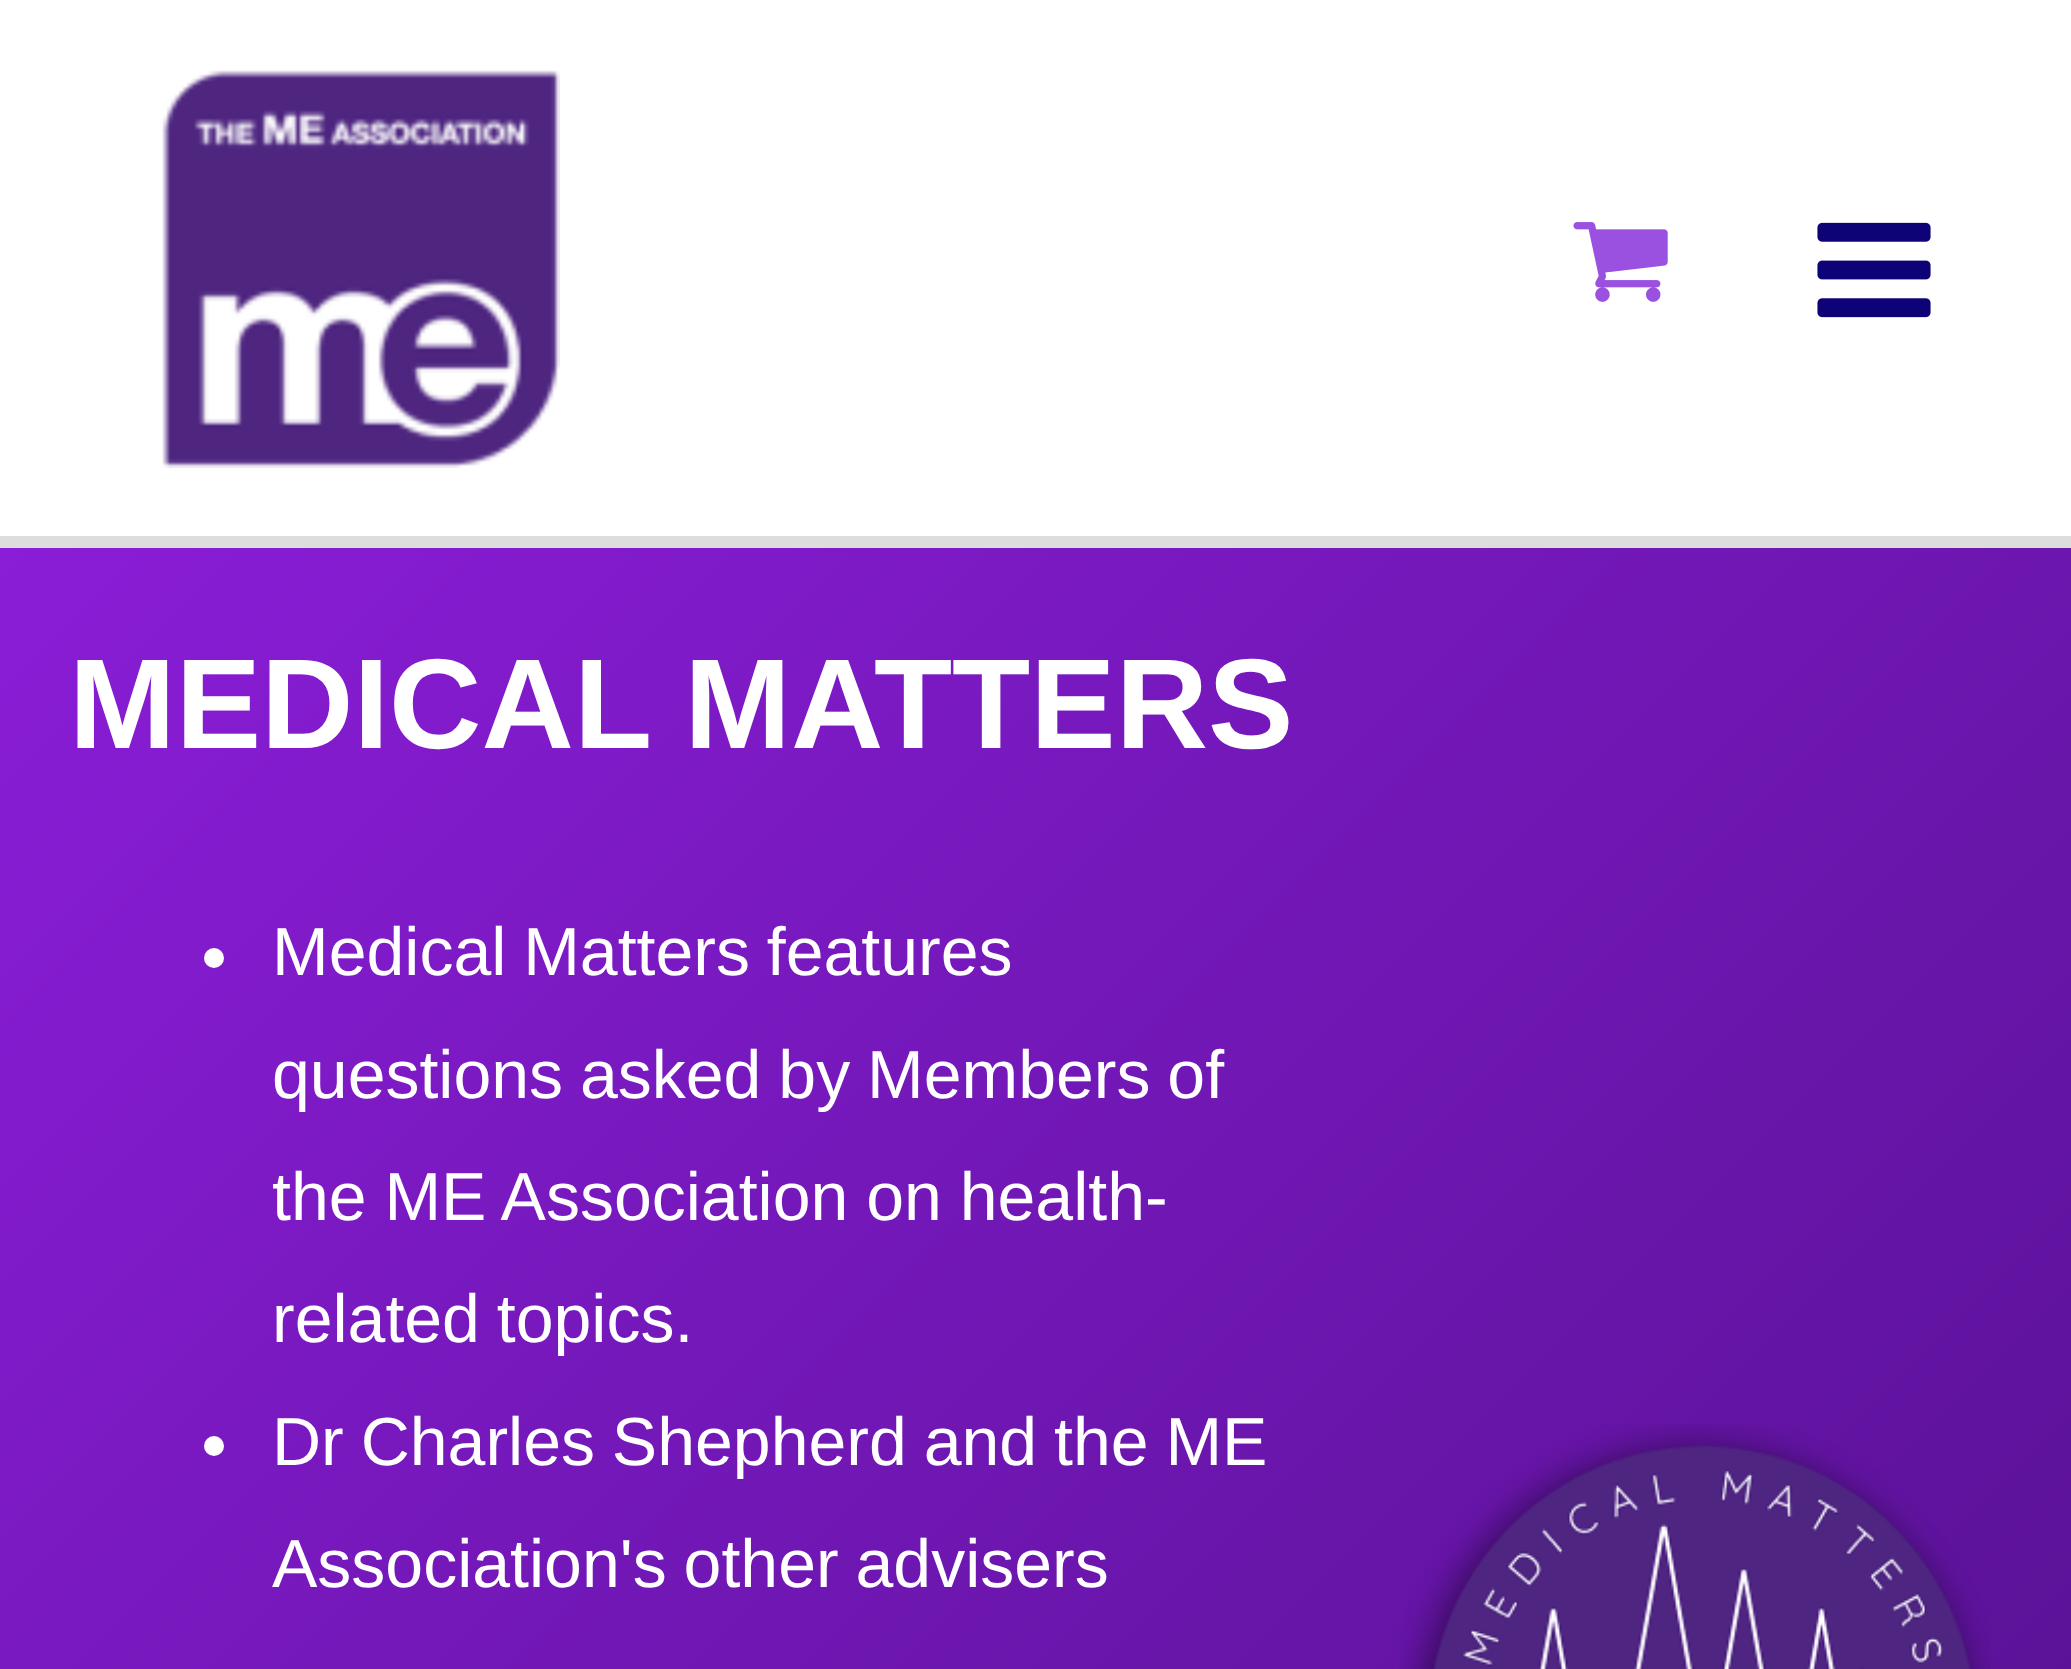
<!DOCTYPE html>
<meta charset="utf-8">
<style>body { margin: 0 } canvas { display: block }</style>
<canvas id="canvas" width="2071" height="1669"></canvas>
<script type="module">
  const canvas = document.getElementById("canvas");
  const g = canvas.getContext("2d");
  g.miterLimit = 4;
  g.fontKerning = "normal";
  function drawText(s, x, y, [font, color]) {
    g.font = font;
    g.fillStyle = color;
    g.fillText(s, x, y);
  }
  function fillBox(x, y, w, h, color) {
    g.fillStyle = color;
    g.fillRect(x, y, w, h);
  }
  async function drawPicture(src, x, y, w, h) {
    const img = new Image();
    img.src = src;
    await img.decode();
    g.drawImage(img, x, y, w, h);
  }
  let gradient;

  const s1 = ["bold 128px Liberation Sans", "#FFFFFF"];
  const s2 = ["68px Liberation Sans", "#FFFFFF"];

  fillBox(0, 0, 2071, 1669, "#FFFFFF");
  fillBox(0, 536, 2071, 12, "#DDDDDD");
  await drawPicture("pic1.png", 162, 70, 398, 398);
  await drawPicture("pic2.png", 1573, 222, 95, 80);
  await drawPicture("pic3.png", 1817, 222, 114, 96);
  gradient = g.createLinearGradient(-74, 622, 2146, 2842);
  gradient.addColorStop(0, "#8A1DD7");
  gradient.addColorStop(1, "#490E80");
  g.fillStyle = gradient;
  g.fillRect(0, 548, 2071, 1121);
  g.wordSpacing = "-1px";
  drawText("MEDICAL MATTERS", 69, 748, s1);
  g.beginPath();
  g.arc(214, 958, 10, 0, Math.PI * 2);
  g.fill();
  g.wordSpacing = "-2px";
  drawText("Medical Matters features", 272, 975, s2);
  drawText("questions asked by Members of", 272, 1098, s2);
  g.wordSpacing = "-1px";
  drawText("the ME Association on health-", 272, 1220, s2);
  g.wordSpacing = "-2px";
  drawText("related topics.", 272, 1342, s2);
  g.beginPath();
  g.arc(214, 1446, 10, 0, Math.PI * 2);
  g.fill();
  drawText("Dr Charles Shepherd and the ME", 272, 1465, s2);
  drawText("Association's other advisers", 272, 1587, s2);
  await drawPicture("pic4.png", 1399, 1424, 592, 245);
</script>
